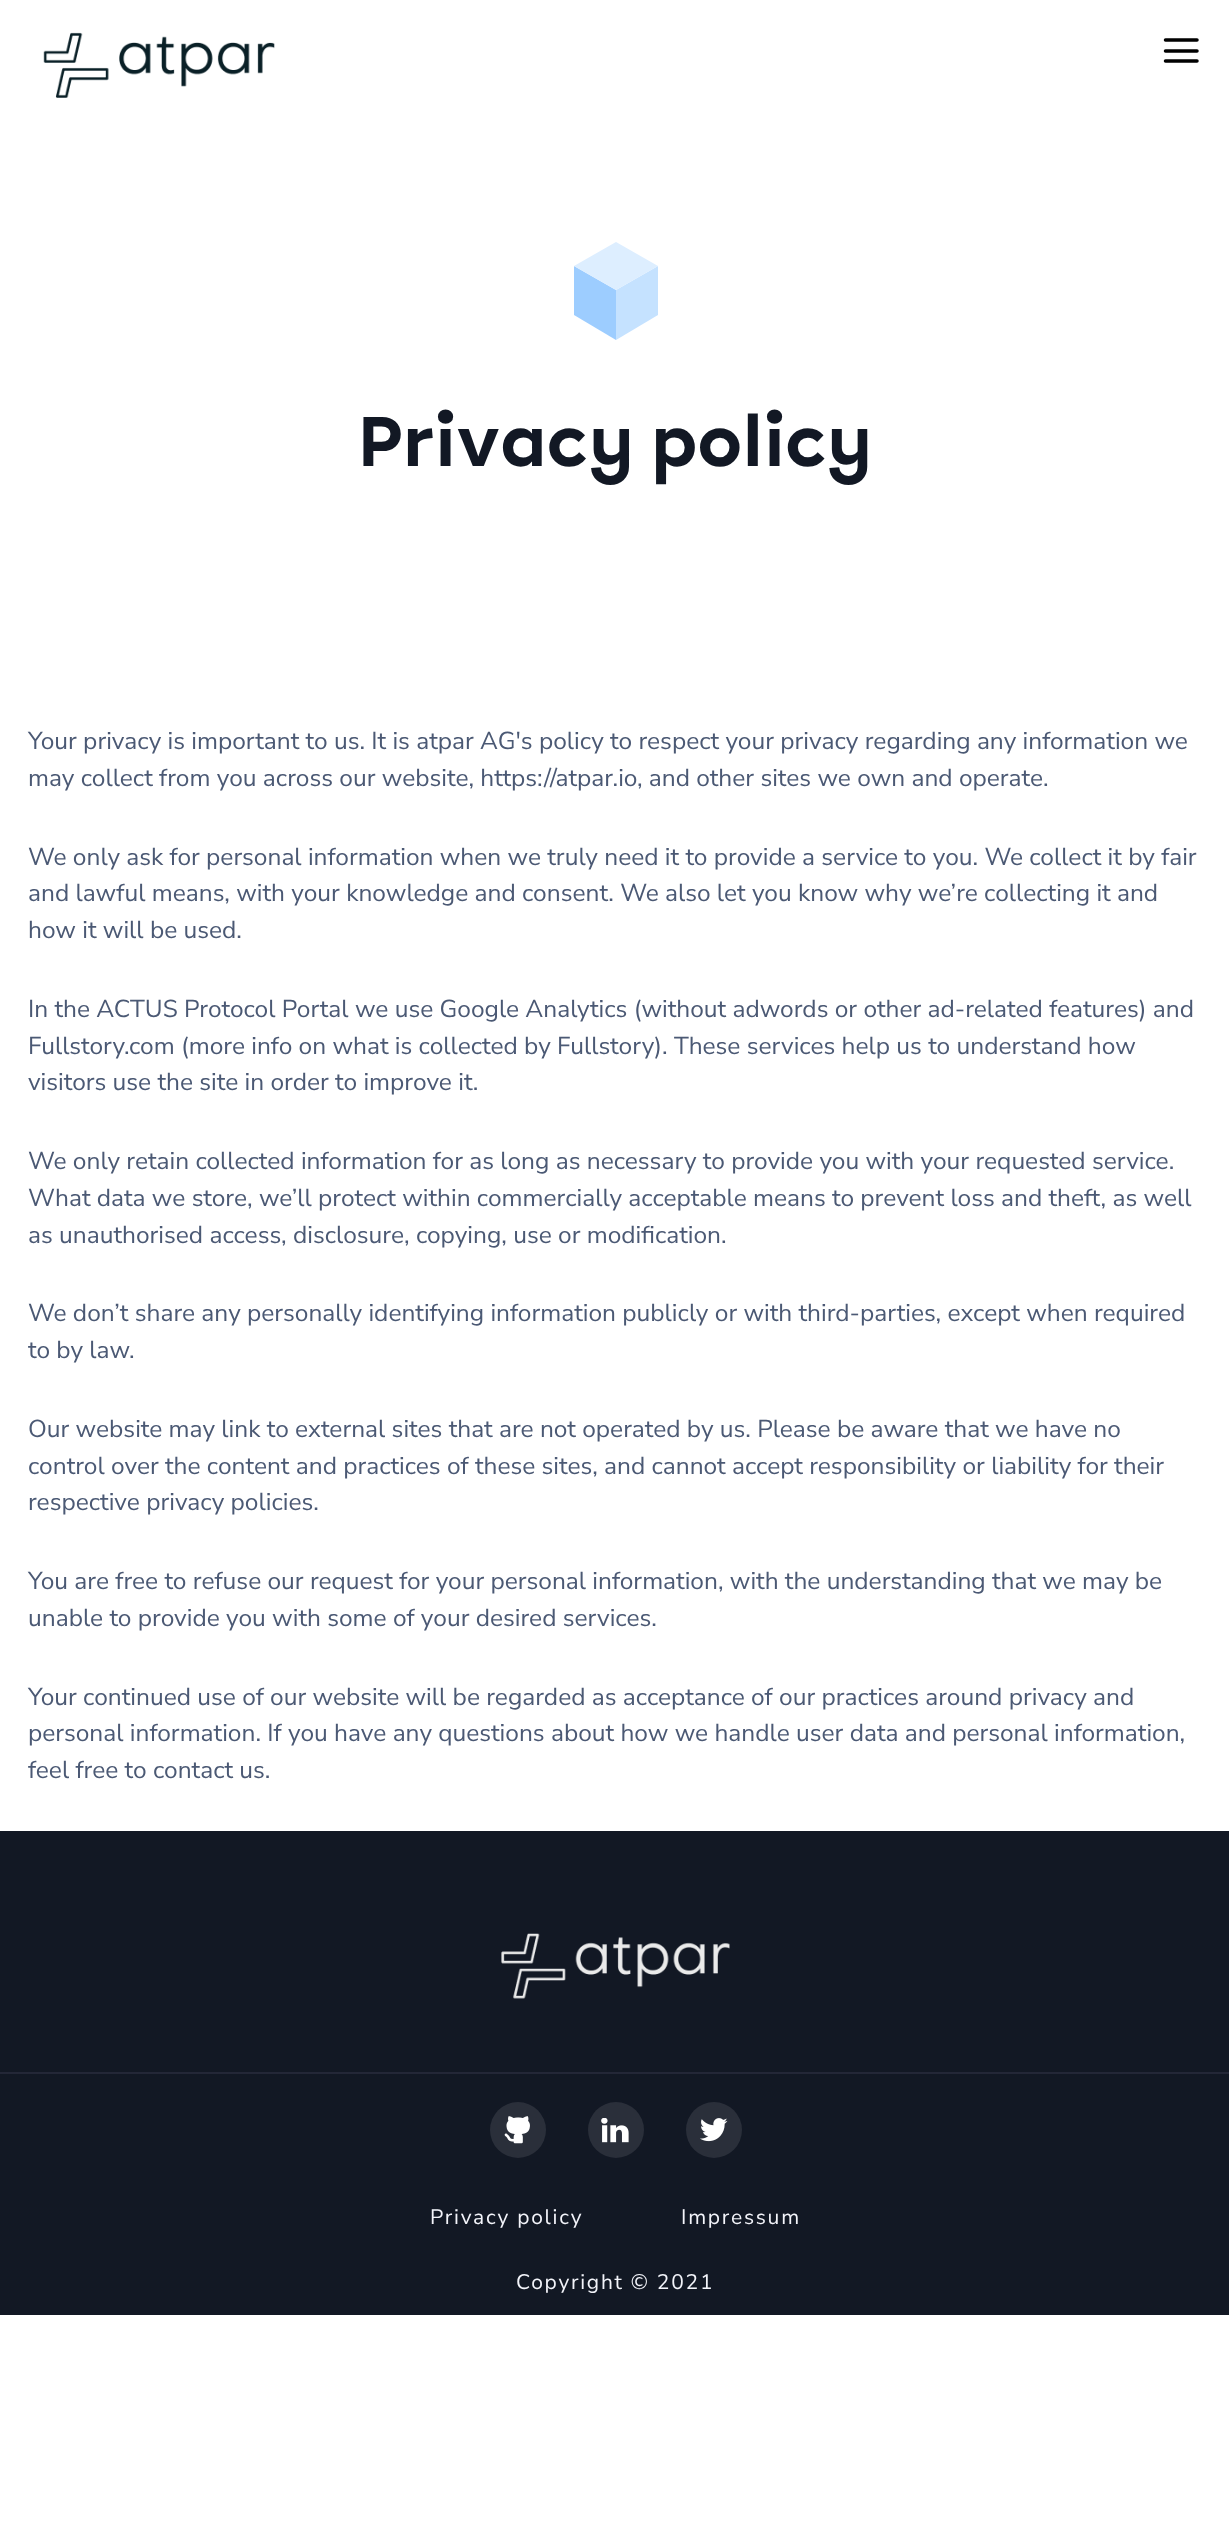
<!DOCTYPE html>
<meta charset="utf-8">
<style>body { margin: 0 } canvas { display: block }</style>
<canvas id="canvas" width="1229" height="2545"></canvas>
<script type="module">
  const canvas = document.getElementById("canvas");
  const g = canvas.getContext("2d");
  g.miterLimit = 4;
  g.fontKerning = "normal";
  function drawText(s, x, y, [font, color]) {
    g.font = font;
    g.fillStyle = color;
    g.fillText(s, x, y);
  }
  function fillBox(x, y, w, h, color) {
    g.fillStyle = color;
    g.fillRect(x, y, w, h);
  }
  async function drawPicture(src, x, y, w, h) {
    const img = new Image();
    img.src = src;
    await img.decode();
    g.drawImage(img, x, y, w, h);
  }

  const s1 = ["bold 70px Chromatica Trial", "#121824"];
  const s2 = ["24.5px Nunito Sans", "#4B5974"];
  const s3 = ["21px Nunito Sans", "#F3F4FA"];

  fillBox(0, 0, 1229, 2545, "#FFFFFF");
  await drawPicture("pic1.png", 43, 32, 232, 66);
  g.beginPath();
  g.moveTo(1165.5, 61);
  g.lineTo(1197, 61);
  g.moveTo(1165.5, 51);
  g.lineTo(1197, 51);
  g.moveTo(1165.5, 40);
  g.lineTo(1197, 40);
  g.strokeStyle = "#000000";
  g.lineWidth = 3.5;
  g.lineCap = "round";
  g.lineJoin = "round";
  g.stroke();
  g.fillStyle = "#9DCDFF";
  g.beginPath();
  g.moveTo(574, 315);
  g.lineTo(616, 340);
  g.lineTo(616, 290);
  g.lineTo(574, 266);
  g.closePath();
  g.fill();
  g.fillStyle = "#C5E2FF";
  g.beginPath();
  g.moveTo(616, 340);
  g.lineTo(658, 315);
  g.lineTo(658, 266);
  g.lineTo(616, 290);
  g.closePath();
  g.fill();
  g.fillStyle = "#DDEEFF";
  g.beginPath();
  g.moveTo(574, 266);
  g.lineTo(616, 290);
  g.lineTo(658, 266);
  g.lineTo(616, 242);
  g.closePath();
  g.fill();
  drawText("Privacy policy", 358, 466, s1);
  drawText("Your privacy is important to us. It is atpar AG's policy to respect your privacy regarding any information we", 28, 749, s2);
  drawText("may collect from you across our website, https://atpar.io, and other sites we own and operate.", 28, 786, s2);
  drawText("We only ask for personal information when we truly need it to provide a service to you. We collect it by fair", 28, 865, s2);
  drawText("and lawful means, with your knowledge and consent. We also let you know why we’re collecting it and", 28, 901, s2);
  drawText("how it will be used.", 28, 938, s2);
  drawText("In the ACTUS Protocol Portal we use Google Analytics (without adwords or other ad-related features) and", 28, 1017, s2);
  drawText("Fullstory.com (more info on what is collected by Fullstory). These services help us to understand how", 28, 1054, s2);
  drawText("visitors use the site in order to improve it.", 28, 1090, s2);
  drawText("We only retain collected information for as long as necessary to provide you with your requested service.", 28, 1169, s2);
  drawText("What data we store, we’ll protect within commercially acceptable means to prevent loss and theft, as well", 28, 1206, s2);
  drawText("as unauthorised access, disclosure, copying, use or modification.", 28, 1243, s2);
  drawText("We don’t share any personally identifying information publicly or with third-parties, except when required", 28, 1321, s2);
  drawText("to by law.", 28, 1358, s2);
  drawText("Our website may link to external sites that are not operated by us. Please be aware that we have no", 28, 1437, s2);
  drawText("control over the content and practices of these sites, and cannot accept responsibility or liability for their", 28, 1474, s2);
  drawText("respective privacy policies.", 28, 1510, s2);
  drawText("You are free to refuse our request for your personal information, with the understanding that we may be", 28, 1589, s2);
  drawText("unable to provide you with some of your desired services.", 28, 1626, s2);
  drawText("Your continued use of our website will be regarded as acceptance of our practices around privacy and", 28, 1705, s2);
  drawText("personal information. If you have any questions about how we handle user data and personal information,", 28, 1741, s2);
  drawText("feel free to contact us.", 28, 1778, s2);
  fillBox(0, 1831, 1229, 484, "#121824");
  await drawPicture("pic2.png", 501, 1933, 229, 66);
  fillBox(0, 2072, 1229, 2, "#232737");
  g.fillStyle = "#2A2F3A";
  g.beginPath();
  g.arc(518, 2130, 28, 0, Math.PI * 2);
  g.fill();
  await drawPicture("pic3.png", 504, 2116, 26, 28);
  g.beginPath();
  g.arc(616, 2130, 28, 0, Math.PI * 2);
  g.fill();
  await drawPicture("pic4.png", 601, 2118, 28, 25);
  g.beginPath();
  g.arc(714, 2130, 28, 0, Math.PI * 2);
  g.fill();
  await drawPicture("pic5.png", 700, 2118, 28, 24);
  g.letterSpacing = "1.75px";
  drawText("Privacy policy", 430, 2224, s3);
  drawText("Impressum", 681, 2224, s3);
  drawText("Copyright © 2021", 516, 2289, s3);
</script>
